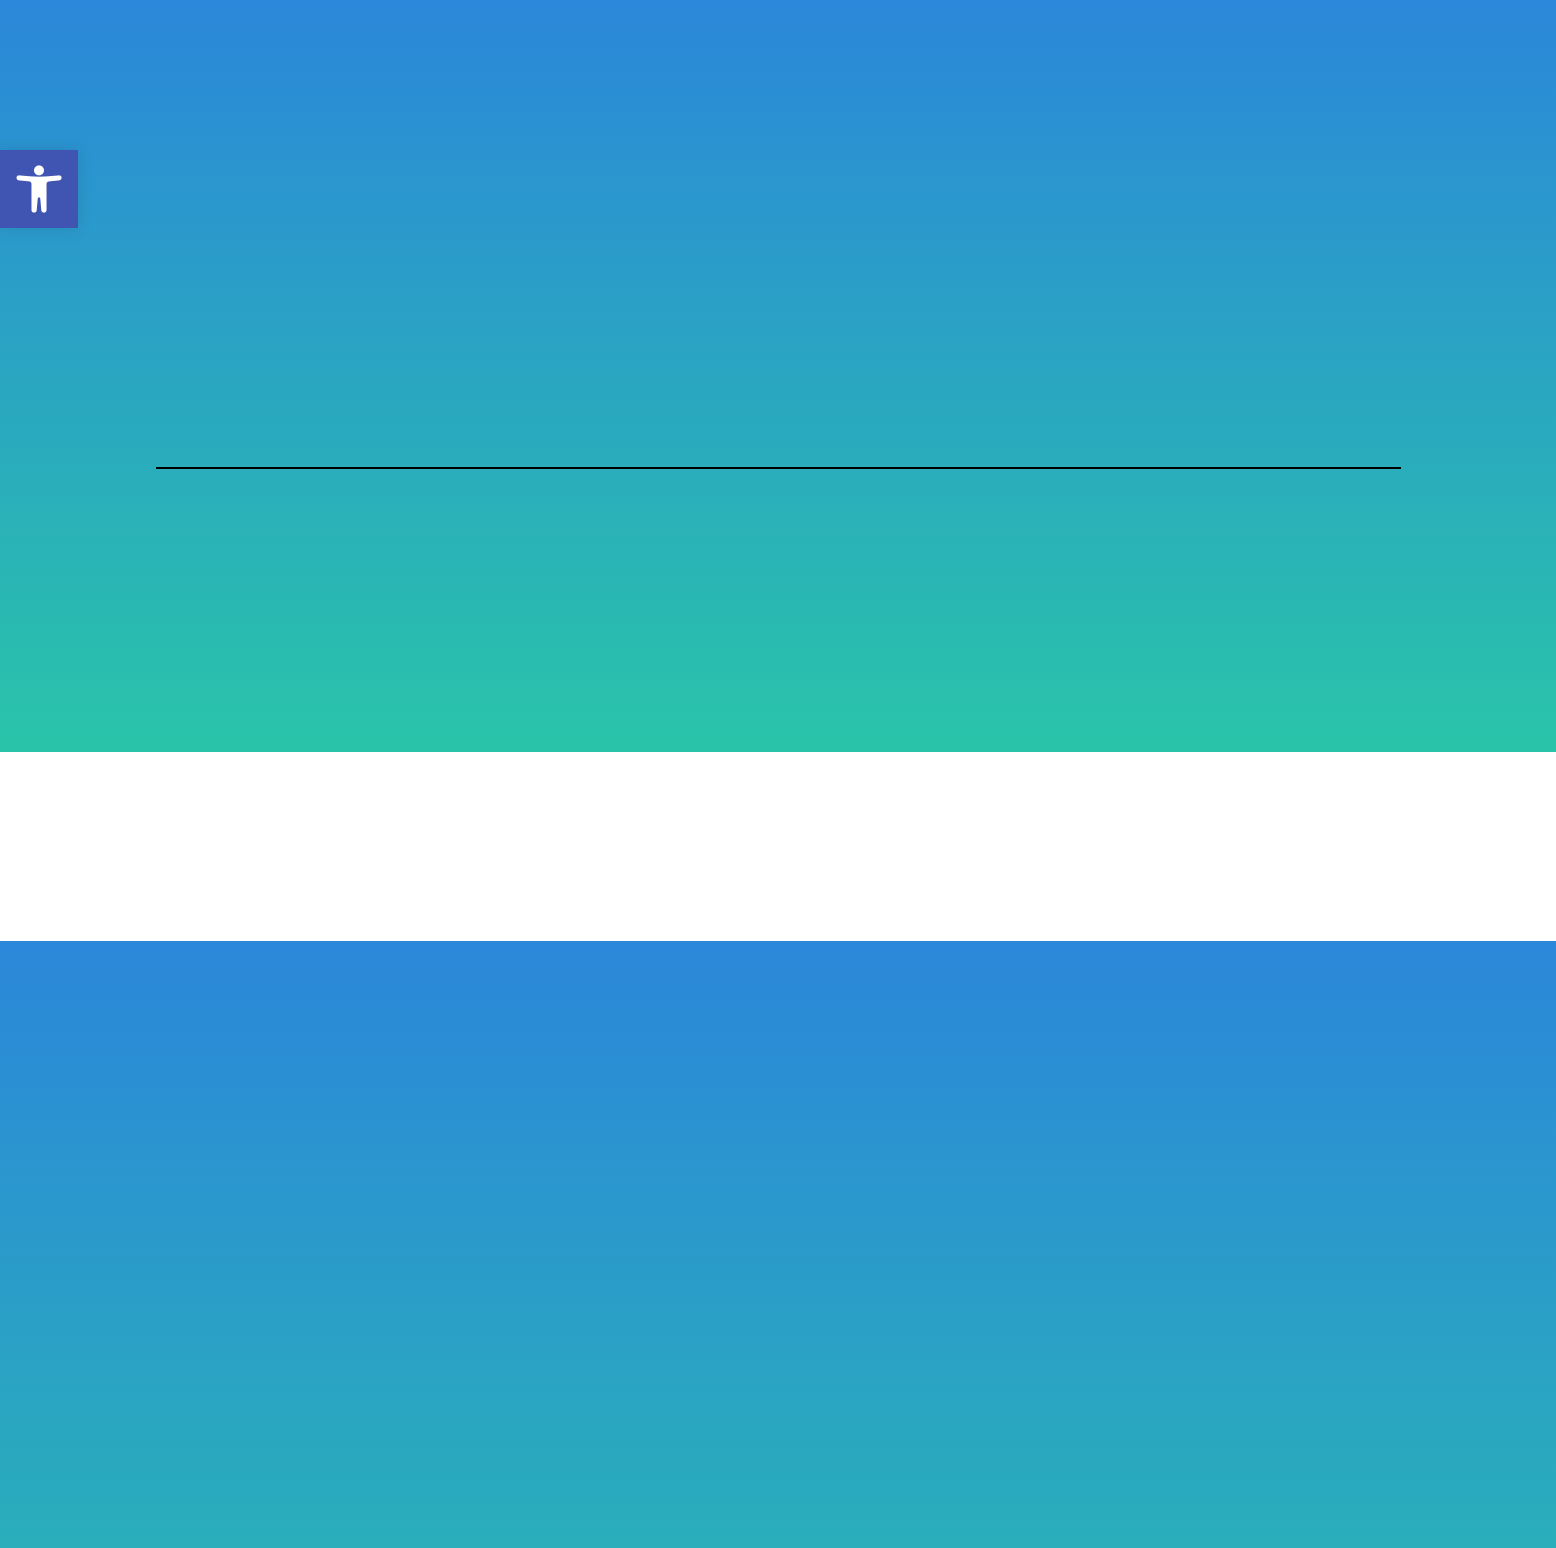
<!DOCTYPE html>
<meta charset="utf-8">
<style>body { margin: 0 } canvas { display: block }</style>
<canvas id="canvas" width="1556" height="1548"></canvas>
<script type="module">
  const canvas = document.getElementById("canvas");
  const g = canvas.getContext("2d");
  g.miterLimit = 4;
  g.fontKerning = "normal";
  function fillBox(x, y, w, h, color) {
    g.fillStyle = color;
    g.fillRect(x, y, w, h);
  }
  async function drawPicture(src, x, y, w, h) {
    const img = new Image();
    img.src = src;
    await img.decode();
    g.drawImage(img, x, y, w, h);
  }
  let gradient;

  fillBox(0, 0, 1556, 1548, "#FFFFFF");
  gradient = g.createLinearGradient(779, 0, 779, 752);
  gradient.addColorStop(0, "#2B87DA");
  gradient.addColorStop(1, "#29C4A9");
  g.fillStyle = gradient;
  g.fillRect(0, 0, 1556, 752);
  fillBox(156, 467, 1245, 2, "#000000");
  gradient = g.createLinearGradient(779, 941, 779, 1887);
  gradient.addColorStop(0, "#2B87DA");
  gradient.addColorStop(1, "#29C4A9");
  g.fillStyle = gradient;
  g.fillRect(0, 941, 1556, 607);
  g.fillStyle = "rgba(0, 0, 0, 0.1)";
  g.filter = "blur(7.5px)";
  g.beginPath();
  g.rect(0, 150, 78, 78);
  g.fill();
  g.filter = "none";
  fillBox(0, 150, 78, 78, "#4054B2");
  await drawPicture("pic1.png", 16, 165, 46, 48);
</script>
